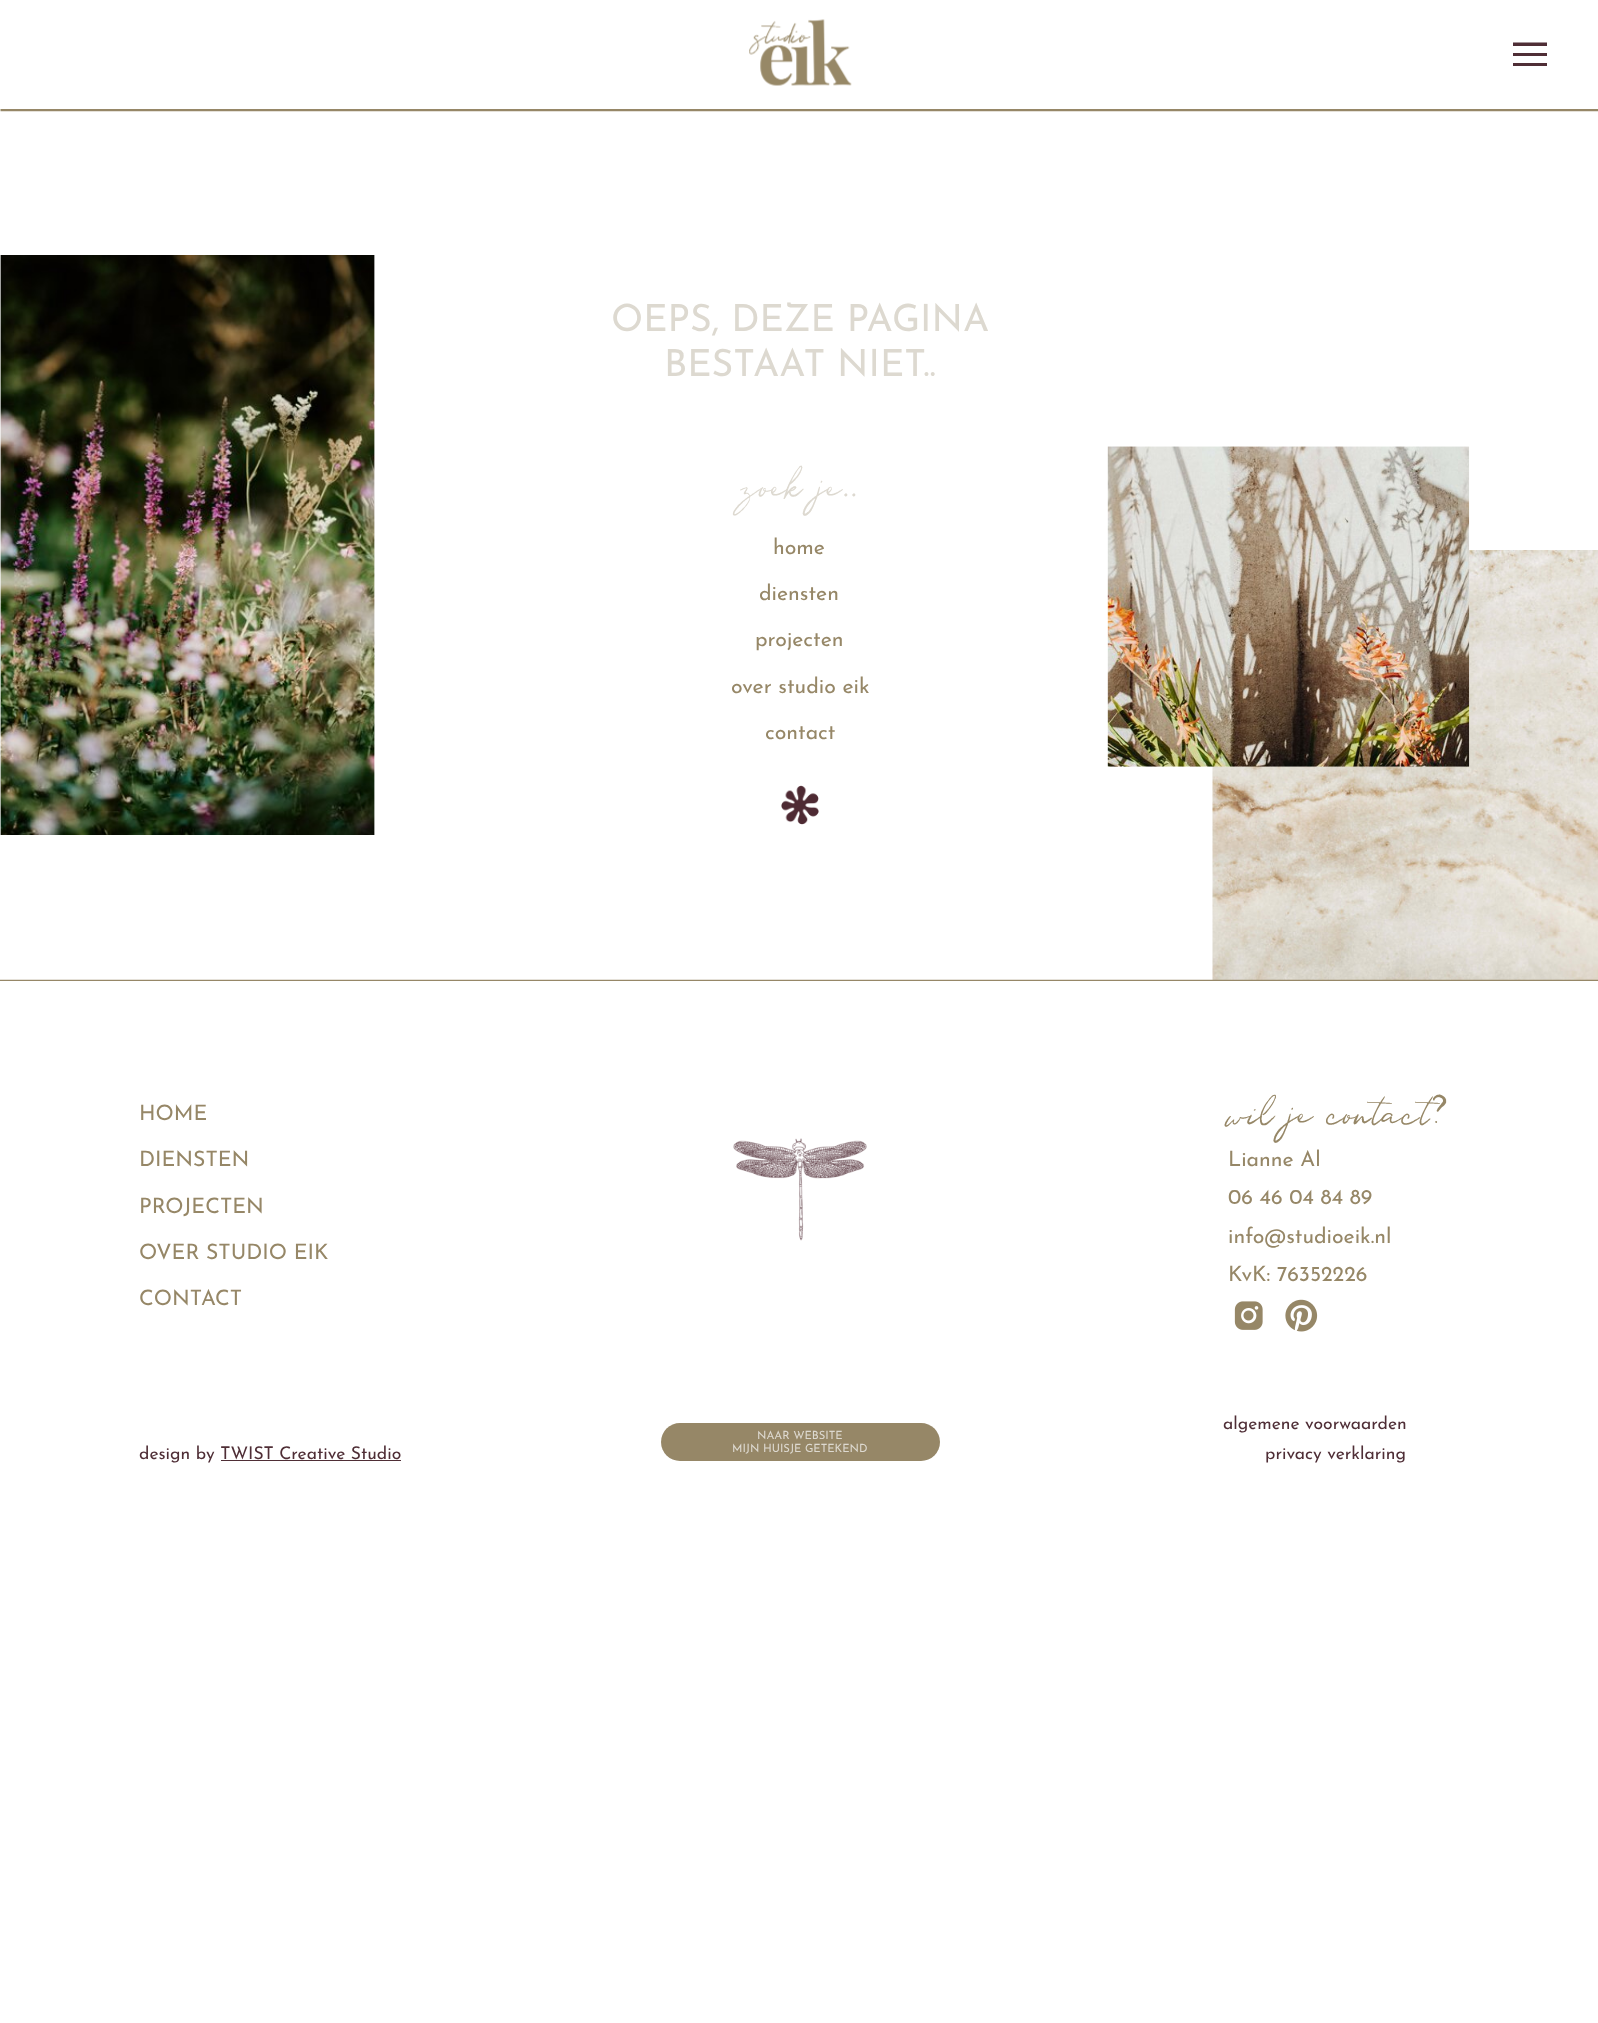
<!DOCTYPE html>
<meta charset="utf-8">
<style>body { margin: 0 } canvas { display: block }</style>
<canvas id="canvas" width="1598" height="2023"></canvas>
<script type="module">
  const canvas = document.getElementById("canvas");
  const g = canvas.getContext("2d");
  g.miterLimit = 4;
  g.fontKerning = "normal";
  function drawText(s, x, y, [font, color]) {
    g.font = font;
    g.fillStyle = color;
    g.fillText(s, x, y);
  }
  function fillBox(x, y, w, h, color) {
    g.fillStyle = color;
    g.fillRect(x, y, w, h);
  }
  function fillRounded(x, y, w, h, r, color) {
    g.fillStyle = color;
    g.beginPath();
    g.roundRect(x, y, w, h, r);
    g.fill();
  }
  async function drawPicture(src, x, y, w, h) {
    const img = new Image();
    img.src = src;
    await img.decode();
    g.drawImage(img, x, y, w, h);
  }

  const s1 = ["100 37.5px Josefin Sans", "#DDD9D0"];
  const s2 = ["50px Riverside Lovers", "#DDD9D0"];
  const s3 = ["100 21.25px Josefin Sans", "#968767"];
  const s4 = ["50px Riverside Lovers", "#968767"];
  const s5 = ["100 17.5px Josefin Sans", "#4F2E36"];
  const s6 = ["100 11.25px Josefin Sans", "#DDD9D0"];

  fillBox(0, 0, 1598, 2023, "#FFFFFF");
  g.beginPath();
  g.moveTo(0.5, 110);
  g.lineTo(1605.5, 110);
  g.strokeStyle = "#968767";
  g.lineWidth = 2.5;
  g.stroke();
  fillBox(0, 108, 1598, 1, "#FFFFFF");
  await drawPicture("pic1.png", 749, 19, 103, 67);
  g.fillStyle = "#4F2E36";
  g.beginPath();
  g.moveTo(1513, 53);
  g.lineTo(1547, 53);
  g.lineTo(1547, 56);
  g.lineTo(1513, 56);
  g.closePath();
  g.moveTo(1513, 42.5);
  g.lineTo(1547, 42.5);
  g.lineTo(1547, 46);
  g.lineTo(1513, 46);
  g.closePath();
  g.moveTo(1513, 63);
  g.lineTo(1547, 63);
  g.lineTo(1547, 66);
  g.lineTo(1513, 66);
  g.closePath();
  g.fill();
  await drawPicture("pic2.png", 0, 255, 375, 580);
  drawText("OEPS, DEZE PAGINA", 611, 331, s1);
  drawText("BESTAAT NIET..", 664, 376, s1);
  drawText("zoek je..", 740, 496, s2);
  await drawPicture("pic4.png", 1212, 550, 386, 430);
  await drawPicture("pic3.png", 1107, 446, 363, 321);
  drawText("home", 773, 554, s3);
  drawText("diensten", 759, 600, s3);
  drawText("projecten", 755, 646, s3);
  drawText("over studio eik", 731, 693, s3);
  drawText("contact", 765, 739, s3);
  await drawPicture("pic5.png", 781, 785, 38, 40);
  g.beginPath();
  g.moveTo(-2, 981);
  g.lineTo(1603, 981);
  g.stroke();
  fillBox(0, 981, 1598, 2, "#FFFFFF");
  drawText("HOME", 139, 1120, s3);
  drawText("wil je contact?", 1228, 1123, s4);
  drawText("DIENSTEN", 139, 1166, s3);
  await drawPicture("pic6.png", 733, 1138, 134, 103);
  drawText("Lianne Al", 1228, 1166, s3);
  drawText("06 46 04 84 89", 1228, 1204, s3);
  drawText("info@studioeik.nl", 1228, 1243, s3);
  drawText("KvK: 76352226", 1228, 1281, s3);
  drawText("PROJECTEN", 139, 1213, s3);
  drawText("OVER STUDIO EIK", 139, 1259, s3);
  drawText("CONTACT", 139, 1305, s3);
  await drawPicture("pic7.png", 1234, 1301, 29, 29);
  await drawPicture("pic8.png", 1285, 1299, 33, 33);
  fillRounded(661, 1423, 279, 38, 19, "#968767");
  drawText("algemene voorwaarden", 1223, 1429, s5);
  drawText("design by TWIST Creative Studio", 139, 1459, s5);
  fillBox(221, 1460, 180, 1, "#4F2E36");
  drawText("NAAR WEBSITE", 757, 1439, s6);
  drawText("MIJN HUISJE GETEKEND", 732, 1452, s6);
  drawText("privacy verklaring", 1265, 1459, s5);
</script>
